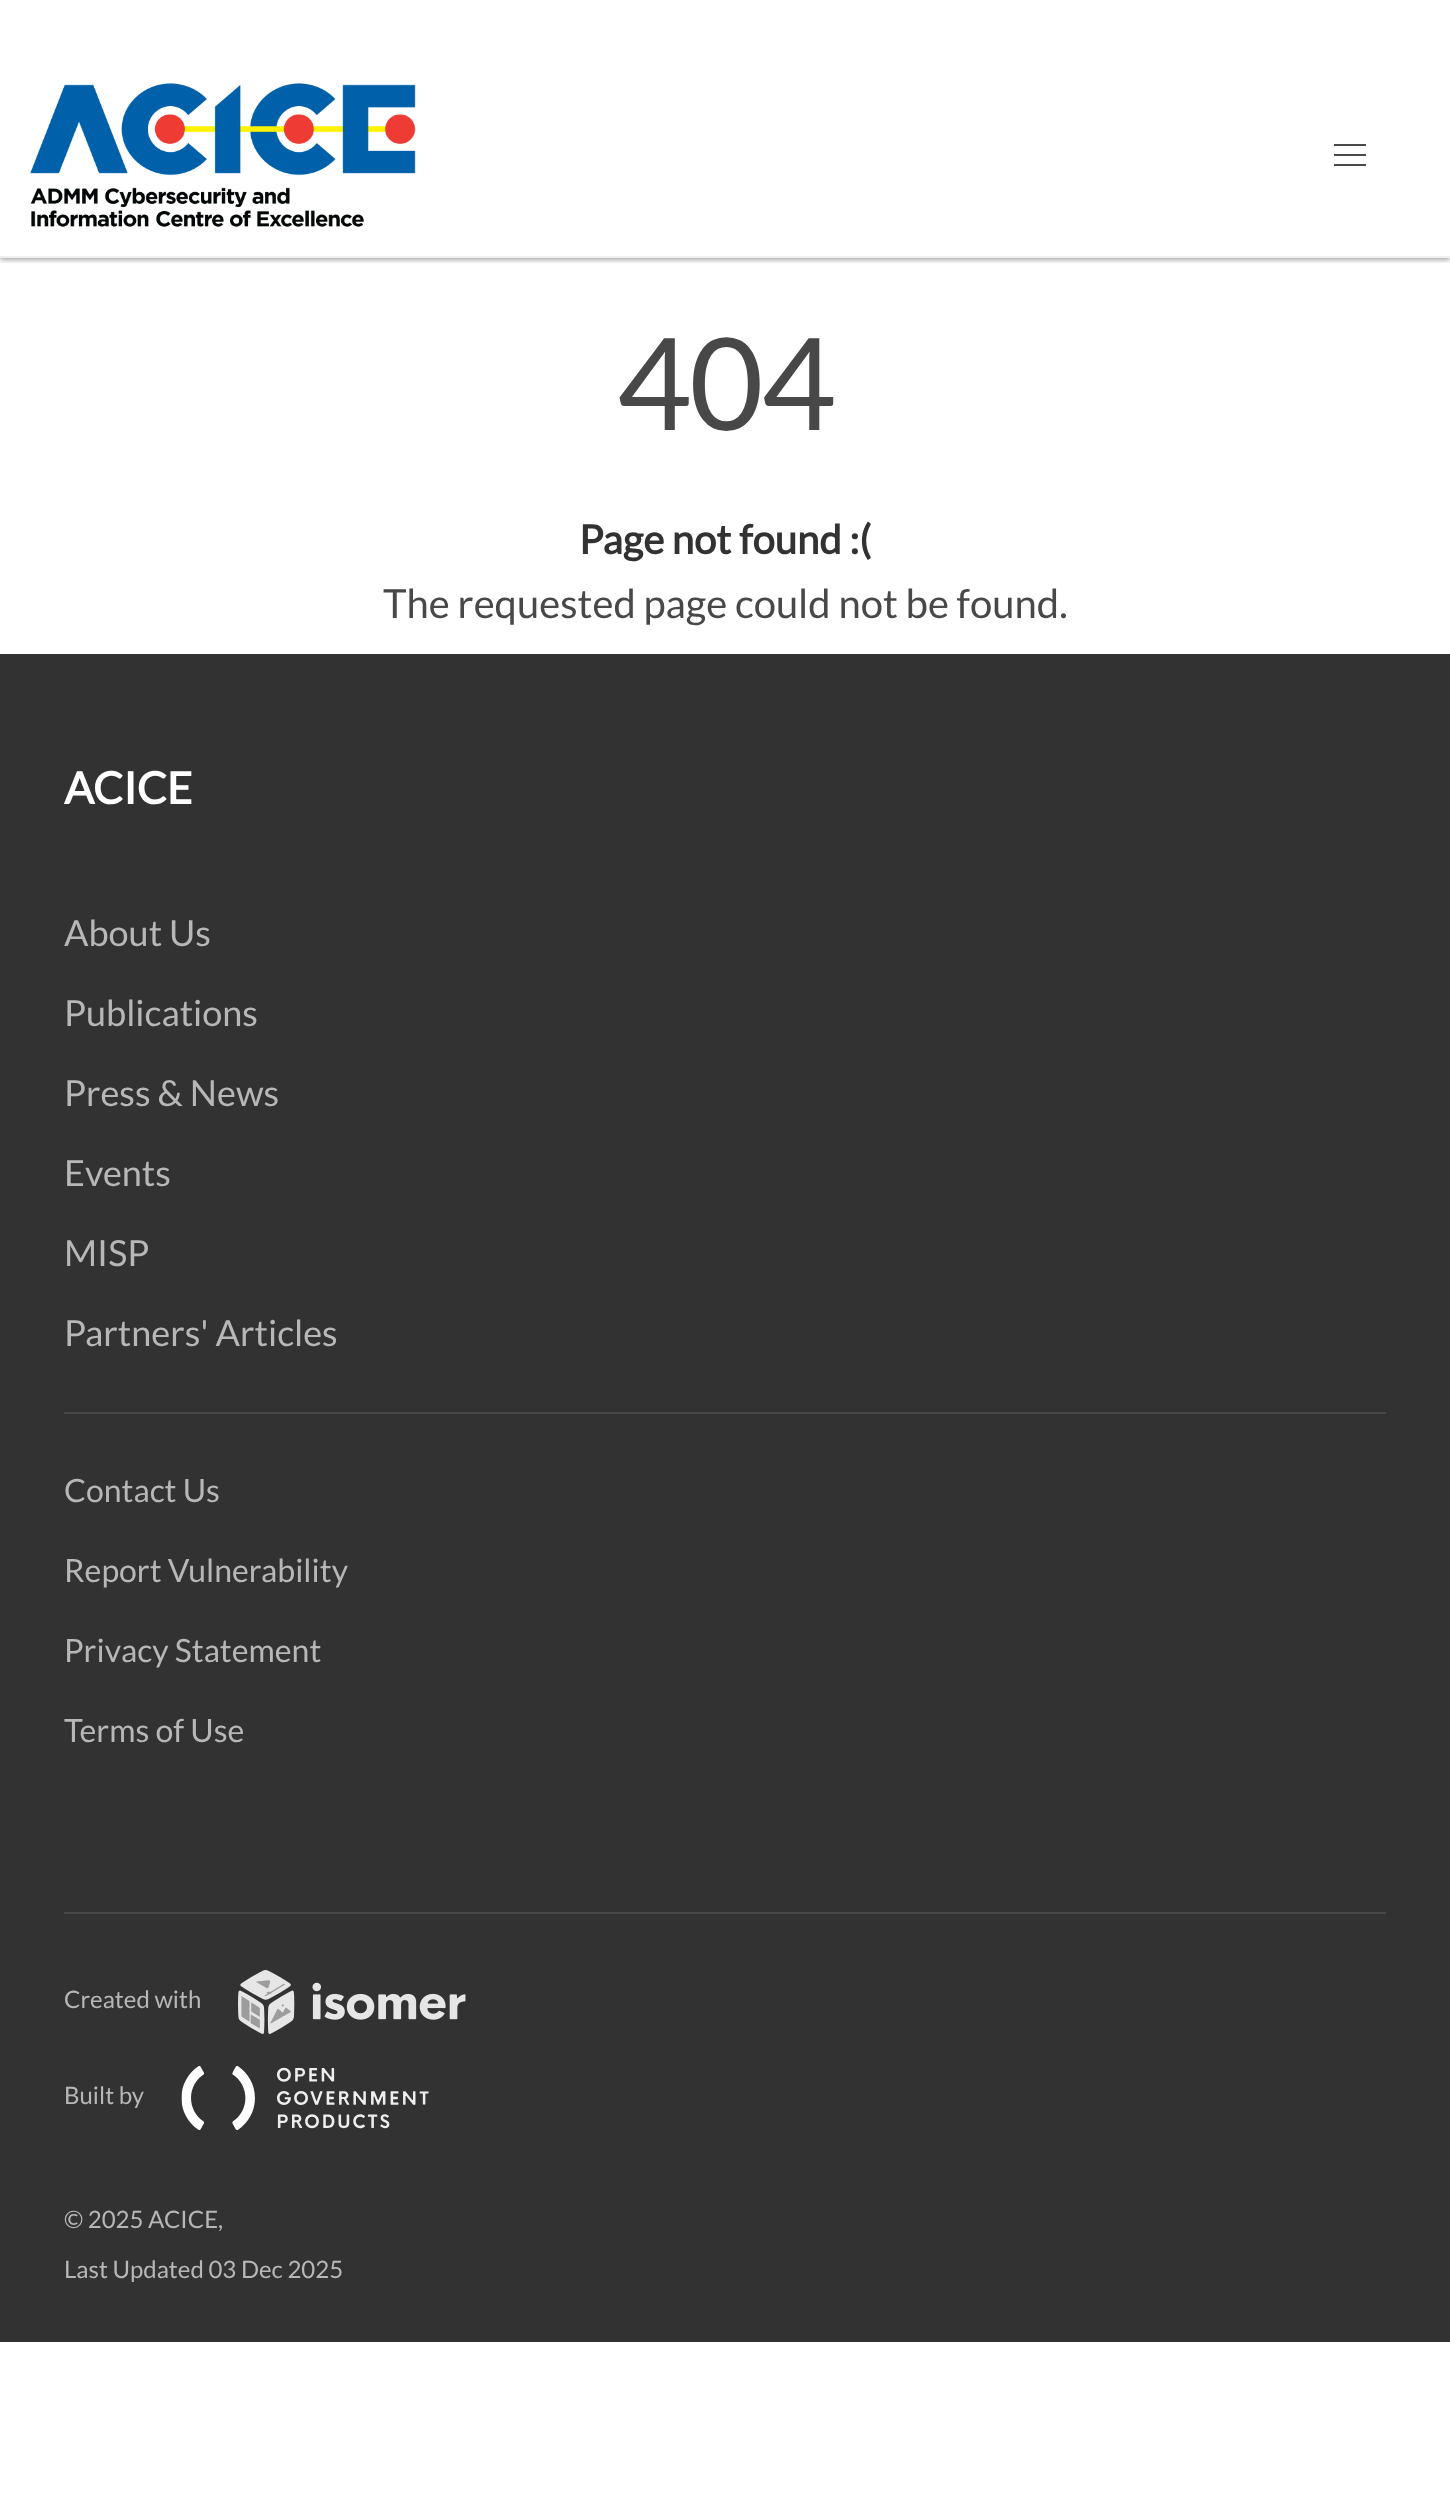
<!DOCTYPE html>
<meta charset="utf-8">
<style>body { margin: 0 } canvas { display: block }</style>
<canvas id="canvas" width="1450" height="2496"></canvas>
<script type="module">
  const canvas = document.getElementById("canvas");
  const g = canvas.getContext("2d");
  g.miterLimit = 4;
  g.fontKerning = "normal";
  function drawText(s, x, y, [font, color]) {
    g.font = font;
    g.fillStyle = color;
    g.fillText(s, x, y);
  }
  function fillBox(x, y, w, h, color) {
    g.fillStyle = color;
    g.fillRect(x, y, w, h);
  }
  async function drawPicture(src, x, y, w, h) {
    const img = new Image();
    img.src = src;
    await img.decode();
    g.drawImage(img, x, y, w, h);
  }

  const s1 = ["128px Lato", "#484848"];
  const s2 = ["bold 40px Lato", "#323232"];
  const s3 = ["40px Lato", "#484848"];
  const s4 = ["bold 44px Lato", "#FFFFFF"];
  const s5 = ["36px Lato", "#B7B7B7"];
  const s6 = ["32px Lato", "#B7B7B7"];
  const s7 = ["24px Lato", "#B7B7B7"];

  fillBox(0, 0, 1450, 2496, "#FFFFFF");
  g.save();
  g.beginPath();
  g.rect(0, 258, 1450, 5);
  g.clip();
  g.fillStyle = "rgba(0, 0, 0, 0.24)";
  g.filter = "blur(2px)";
  g.beginPath();
  g.rect(0, -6, 1450, 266);
  g.fill();
  g.filter = "none";
  g.fillStyle = "rgba(0, 0, 0, 0.12)";
  g.filter = "blur(3px)";
  g.beginPath();
  g.rect(0, -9, 1450, 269);
  g.fill();
  g.filter = "none";
  g.restore();
  fillBox(0, 256, 1450, 2, "#F0F0F0");
  await drawPicture("pic1.png", 30, 83, 386, 144);
  fillBox(1334, 144, 32, 2, "#484848");
  fillBox(1334, 154, 32, 2, "#484848");
  fillBox(1334, 164, 32, 2, "#484848");
  g.letterSpacing = "-2px";
  drawText("404", 617, 430, s1);
  g.letterSpacing = "0px";
  drawText("Page not found :(", 579, 554, s2);
  drawText("The requested page could not be found.", 383, 618, s3);
  fillBox(0, 654, 1450, 1688, "#323232");
  drawText("ACICE", 64, 804, s4);
  drawText("About Us", 64, 946, s5);
  drawText("Publications", 64, 1026, s5);
  drawText("Press & News", 64, 1106, s5);
  drawText("Events", 64, 1186, s5);
  drawText("MISP", 64, 1266, s5);
  drawText("Partners' Articles", 64, 1346, s5);
  fillBox(64, 1412, 1322, 2, "#484848");
  drawText("Contact Us", 64, 1502, s6);
  drawText("Report Vulnerability", 64, 1582, s6);
  drawText("Privacy Statement", 64, 1662, s6);
  drawText("Terms of Use", 64, 1742, s6);
  fillBox(64, 1912, 1322, 2, "#484848");
  drawText("Created with", 64, 2008, s7);
  await drawPicture("pic2.png", 238, 1970, 228, 64);
  drawText("Built by", 64, 2104, s7);
  await drawPicture("pic3.png", 181, 2066, 248, 64);
  drawText("© 2025 ACICE,", 64, 2228, s7);
  drawText("Last Updated 03 Dec 2025", 64, 2278, s7);
</script>
